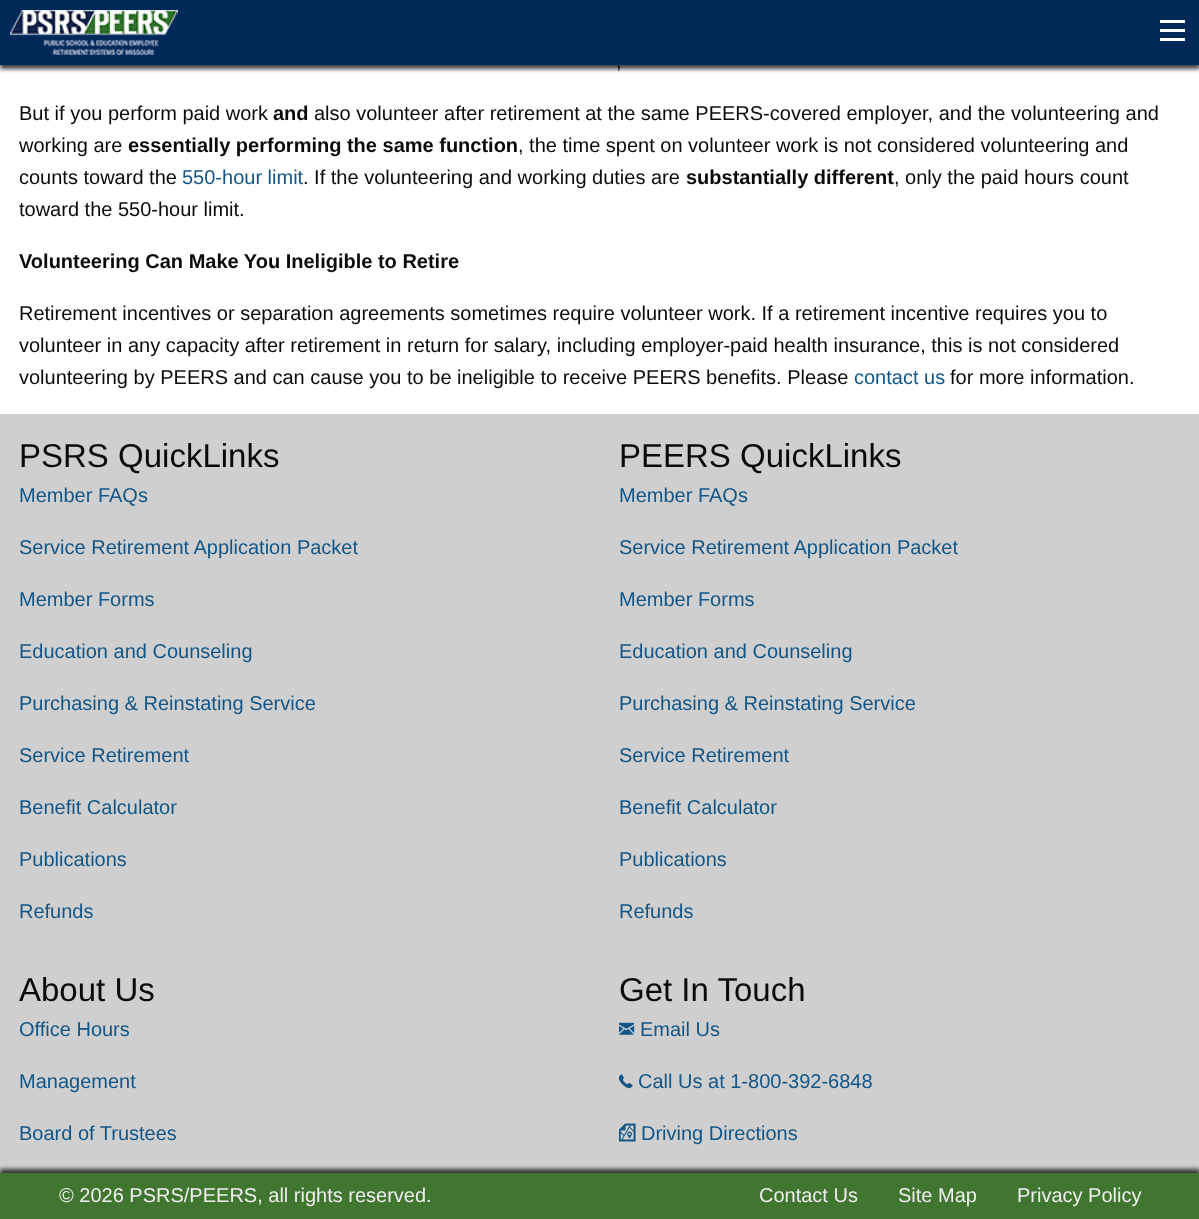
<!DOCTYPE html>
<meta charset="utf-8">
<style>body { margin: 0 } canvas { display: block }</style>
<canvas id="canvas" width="1199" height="1219"></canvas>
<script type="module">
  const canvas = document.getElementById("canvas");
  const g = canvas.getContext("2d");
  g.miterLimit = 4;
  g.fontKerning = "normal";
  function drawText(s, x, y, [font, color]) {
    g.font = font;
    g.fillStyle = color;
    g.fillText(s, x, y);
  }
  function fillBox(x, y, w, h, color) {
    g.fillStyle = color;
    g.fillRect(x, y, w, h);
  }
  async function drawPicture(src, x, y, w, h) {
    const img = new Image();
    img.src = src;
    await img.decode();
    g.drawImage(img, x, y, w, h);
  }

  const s1 = ["20px Liberation Sans", "#0A0A0A"];
  const s2 = ["bold 20px Liberation Sans", "#0A0A0A"];
  const s3 = ["20px Liberation Sans", "#125687"];
  const s4 = ["33px Liberation Sans", "#0A0A0A"];
  const s5 = ["20px Liberation Sans", "#EEEEEE"];

  fillBox(0, 0, 1199, 1219, "#FFFFFF");
  g.fillStyle = "rgba(0, 0, 0, 0.75)";
  g.filter = "blur(2px)";
  g.beginPath();
  g.rect(0, 4, 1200, 65);
  g.fill();
  g.filter = "none";
  fillBox(0, 0, 1199, 65, "#002859");
  await drawPicture("pic1.png", 10, 10, 168, 45);
  fillBox(1160, 38, 25, 3, "#FEFEFE");
  fillBox(1160, 29, 25, 3, "#FEFEFE");
  fillBox(1160, 20, 25, 3, "#FEFEFE");
  drawText(",", 616, 68, s1);
  drawText("But if you perform paid work", 19, 120, s1);
  drawText("and", 273, 120, s2);
  drawText("also volunteer after retirement at the same PEERS-covered employer, and the volunteering and", 314, 120, s1);
  drawText("working are", 19, 152, s1);
  drawText("essentially performing the same function", 128, 152, s2);
  drawText(", the time spent on volunteer work is not considered volunteering and", 518, 152, s1);
  drawText("counts toward the", 19, 184, s1);
  drawText("550-hour limit", 182, 184, s3);
  drawText(". If the volunteering and working duties are", 303, 184, s1);
  drawText("substantially different", 686, 184, s2);
  drawText(", only the paid hours count", 894, 184, s1);
  drawText("toward the 550-hour limit.", 19, 216, s1);
  drawText("Volunteering Can Make You Ineligible to Retire", 19, 268, s2);
  drawText("Retirement incentives or separation agreements sometimes require volunteer work. If a retirement incentive requires you to", 19, 320, s1);
  drawText("volunteer in any capacity after retirement in return for salary, including employer-paid health insurance, this is not considered", 19, 352, s1);
  drawText("volunteering by PEERS and can cause you to be ineligible to receive PEERS benefits. Please", 19, 384, s1);
  drawText("contact us", 854, 384, s3);
  drawText("for more information.", 950, 384, s1);
  fillBox(0, 414, 1199, 759, "#CFCFCF");
  drawText("PSRS QuickLinks", 19, 467, s4);
  drawText("Member FAQs", 19, 502, s3);
  drawText("Service Retirement Application Packet", 19, 554, s3);
  drawText("Member Forms", 19, 606, s3);
  drawText("Education and Counseling", 19, 658, s3);
  drawText("Purchasing & Reinstating Service", 19, 710, s3);
  drawText("Service Retirement", 19, 762, s3);
  drawText("Benefit Calculator", 19, 814, s3);
  drawText("Publications", 19, 866, s3);
  drawText("Refunds", 19, 918, s3);
  drawText("PEERS QuickLinks", 619, 467, s4);
  drawText("Member FAQs", 619, 502, s3);
  drawText("Service Retirement Application Packet", 619, 554, s3);
  drawText("Member Forms", 619, 606, s3);
  drawText("Education and Counseling", 619, 658, s3);
  drawText("Purchasing & Reinstating Service", 619, 710, s3);
  drawText("Service Retirement", 619, 762, s3);
  drawText("Benefit Calculator", 619, 814, s3);
  drawText("Publications", 619, 866, s3);
  drawText("Refunds", 619, 918, s3);
  drawText("About Us", 19, 1001, s4);
  drawText("Office Hours", 19, 1036, s3);
  drawText("Management", 19, 1088, s3);
  drawText("Board of Trustees", 19, 1140, s3);
  drawText("Get In Touch", 619, 1001, s4);
  await drawPicture("pic2.png", 619, 1022, 16, 13);
  drawText("Email Us", 640, 1036, s3);
  await drawPicture("pic3.png", 619, 1074, 14, 15);
  drawText("Call Us at 1-800-392-6848", 638, 1088, s3);
  await drawPicture("pic4.png", 619, 1123, 17, 19);
  drawText("Driving Directions", 641, 1140, s3);
  g.fillStyle = "rgba(0, 0, 0, 0.75)";
  g.filter = "blur(2px)";
  g.beginPath();
  g.rect(0, 1169, 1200, 47);
  g.fill();
  g.filter = "none";
  fillBox(0, 1173, 1199, 46, "#417630");
  drawText("© 2026 PSRS/PEERS, all rights reserved.", 59, 1202, s5);
  drawText("Contact Us", 759, 1202, s5);
  drawText("Site Map", 898, 1202, s5);
  drawText("Privacy Policy", 1017, 1202, s5);
</script>
